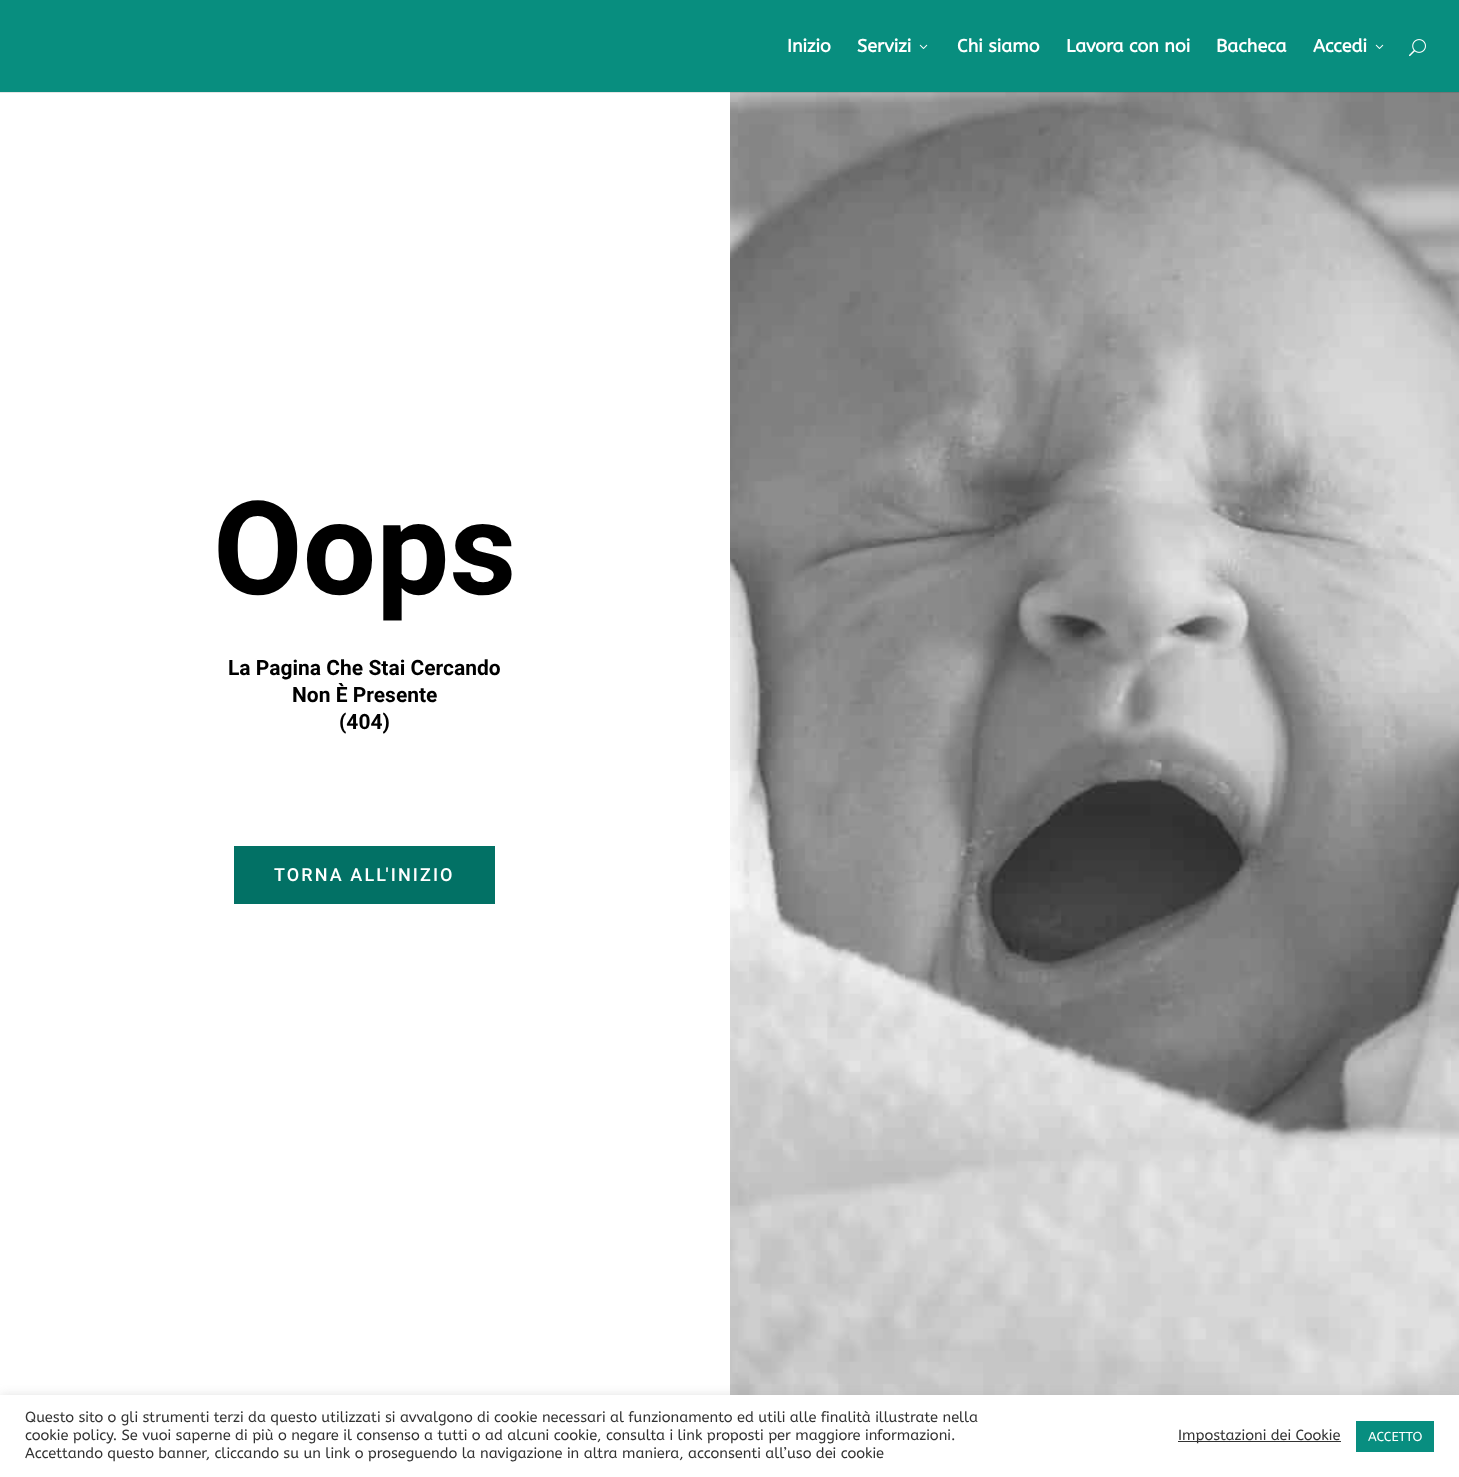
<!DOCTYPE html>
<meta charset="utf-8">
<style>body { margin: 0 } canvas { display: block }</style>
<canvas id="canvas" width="1459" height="1477"></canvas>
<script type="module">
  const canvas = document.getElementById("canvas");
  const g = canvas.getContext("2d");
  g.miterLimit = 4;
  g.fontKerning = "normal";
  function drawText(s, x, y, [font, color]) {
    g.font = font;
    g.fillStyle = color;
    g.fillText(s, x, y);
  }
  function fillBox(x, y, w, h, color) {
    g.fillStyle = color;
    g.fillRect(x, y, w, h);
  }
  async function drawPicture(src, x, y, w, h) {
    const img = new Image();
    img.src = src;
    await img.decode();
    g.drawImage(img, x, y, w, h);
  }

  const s1 = ["bold 18px ABeeZee", "#FFFFFF"];
  const s2 = ["bold 130px Roboto", "#000000"];
  const s3 = ["bold 21px Roboto", "#000000"];
  const s4 = ["500 18px Roboto", "#FFFFFF"];
  const s5 = ["14.67px ABeeZee", "#333333"];
  const s6 = ["13px ABeeZee", "#FFFFFF"];

  fillBox(0, 0, 1459, 1477, "#FFFFFF");
  await drawPicture("pic3.png", 730, 92, 729, 1303);
  fillBox(0, 92, 1459, 1, "rgba(0, 0, 0, 0.1)");
  fillBox(0, 0, 1459, 92, "#088E7F");
  drawText("Inizio", 787, 52, s1);
  drawText("Servizi", 857, 52, s1);
  await drawPicture("pic1.png", 919, 44, 9, 5);
  drawText("Chi siamo", 957, 52, s1);
  drawText("Lavora con noi", 1066, 52, s1);
  drawText("Bacheca", 1216, 52, s1);
  drawText("Accedi", 1313, 52, s1);
  await drawPicture("pic1.png", 1375, 44, 9, 5);
  await drawPicture("pic2.png", 1409, 39, 17, 18);
  drawText("Oops", 213, 594, s2);
  drawText("La Pagina Che Stai Cercando", 228, 675, s3);
  drawText("Non È Presente", 292, 702, s3);
  drawText("(404)", 339, 729, s3);
  fillBox(234, 846, 261, 58, "#027165");
  g.letterSpacing = "2.1px";
  drawText("TORNA ALL'INIZIO", 274, 881, s4);
  g.fillStyle = "rgba(172, 171, 171, 0.3)";
  g.filter = "blur(5px)";
  g.beginPath();
  g.rect(0, 1394, 1459, 82);
  g.fill();
  g.filter = "none";
  fillBox(0, 1395, 1459, 82, "#FFFFFF");
  g.letterSpacing = "0px";
  drawText("Questo sito o gli strumenti terzi da questo utilizzati si avvalgono di cookie necessari al funzionamento ed utili alle finalità illustrate nella", 25, 1422, s5);
  drawText("cookie policy. Se vuoi saperne di più o negare il consenso a tutti o ad alcuni cookie, consulta i link proposti per maggiore informazioni.", 25, 1440, s5);
  drawText("Accettando questo banner, cliccando su un link o proseguendo la navigazione in altra maniera, acconsenti all’uso dei cookie", 25, 1458, s5);
  fillBox(1178, 1441, 163, 1, "#333333");
  drawText("Impostazioni dei Cookie", 1178, 1440, s5);
  fillBox(1356, 1421, 78, 31, "#088E80");
  drawText("ACCETTO", 1368, 1441, s6);
</script>
